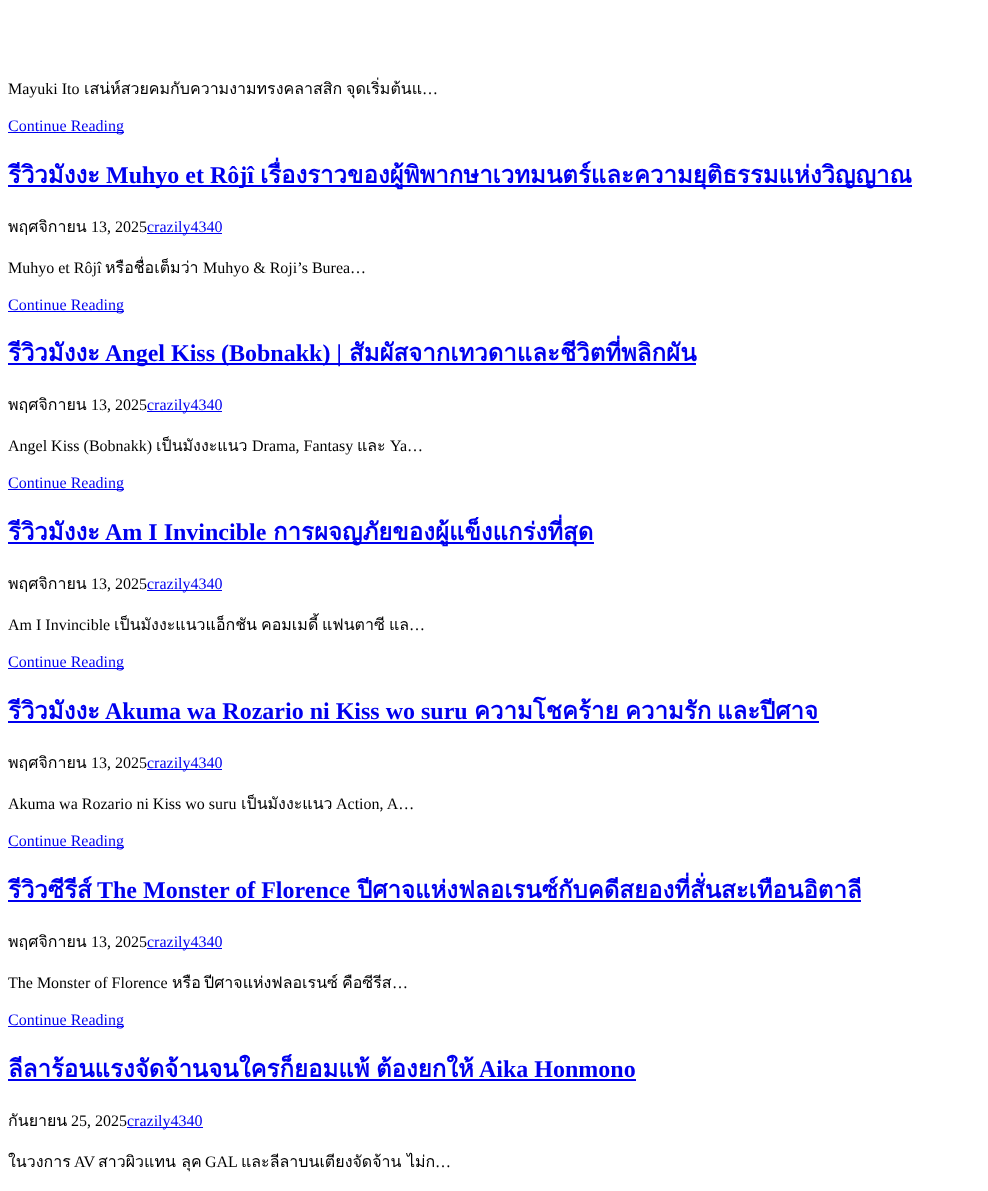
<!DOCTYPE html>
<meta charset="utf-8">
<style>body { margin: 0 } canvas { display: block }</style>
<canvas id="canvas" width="988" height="1191"></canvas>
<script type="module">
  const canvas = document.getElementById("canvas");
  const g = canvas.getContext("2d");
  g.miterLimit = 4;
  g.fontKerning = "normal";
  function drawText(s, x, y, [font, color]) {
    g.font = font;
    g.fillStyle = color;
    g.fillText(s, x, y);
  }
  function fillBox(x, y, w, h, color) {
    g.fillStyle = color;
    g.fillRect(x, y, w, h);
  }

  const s1 = ["16px Liberation Serif", "#000000"];
  const s2 = ["16px Loma", "#000000"];
  const s3 = ["16px Liberation Serif", "#0000EE"];
  const s4 = ["bold 24px Loma", "#0000EE"];
  const s5 = ["bold 24px Liberation Serif", "#0000EE"];

  fillBox(0, 0, 988, 1191, "#FFFFFF");
  drawText("Mayuki Ito", 8, 94, s1);
  drawText("เสน่ห์สวยคมกับความงามทรงคลาสสิก", 84, 94, s2);
  drawText("จุดเริ่มต้นแ", 346, 94, s2);
  drawText("…", 422, 94, s1);
  fillBox(8, 132, 116, 1, "#0000EE");
  drawText("Continue Reading", 8, 131, s3);
  drawText("รีวิวมังงะ", 8, 183, s4);
  fillBox(8, 185, 904, 2, "#0000EE");
  drawText("Muhyo et Rôjî", 106, 183, s5);
  drawText("เรื่องราวของผู้พิพากษาเวทมนตร์และความยุติธรรมแห่งวิญญาณ", 260, 183, s4);
  drawText("พฤศจิกายน", 8, 232, s2);
  drawText("13, 2025", 91, 232, s1);
  fillBox(147, 233, 75, 1, "#0000EE");
  drawText("crazily4340", 147, 232, s3);
  drawText("Muhyo et Rôjî", 8, 273, s1);
  drawText("หรือชื่อเต็มว่า", 105, 273, s2);
  drawText("Muhyo & Roji’s Burea…", 203, 273, s1);
  fillBox(8, 311, 116, 1, "#0000EE");
  drawText("Continue Reading", 8, 310, s3);
  drawText("รีวิวมังงะ", 8, 361, s4);
  fillBox(8, 363, 688, 2, "#0000EE");
  drawText("Angel Kiss (Bobnakk) |", 105, 361, s5);
  drawText("สัมผัสจากเทวดาและชีวิตที่พลิกผัน", 349, 361, s4);
  drawText("พฤศจิกายน", 8, 410, s2);
  drawText("13, 2025", 91, 410, s1);
  fillBox(147, 411, 75, 1, "#0000EE");
  drawText("crazily4340", 147, 410, s3);
  drawText("Angel Kiss (Bobnakk)", 8, 451, s1);
  drawText("เป็นมังงะแนว", 156, 451, s2);
  drawText("Drama, Fantasy", 252, 451, s1);
  drawText("และ", 357, 451, s2);
  drawText("Ya…", 390, 451, s1);
  fillBox(8, 489, 116, 1, "#0000EE");
  drawText("Continue Reading", 8, 488, s3);
  drawText("รีวิวมังงะ", 8, 540, s4);
  drawText("Am I Invincible", 105, 540, s5);
  fillBox(8, 542, 586, 2, "#0000EE");
  drawText("การผจญภัยของผู้แข็งแกร่งที่สุด", 273, 540, s4);
  drawText("พฤศจิกายน", 8, 589, s2);
  drawText("13, 2025", 91, 589, s1);
  fillBox(147, 590, 75, 1, "#0000EE");
  drawText("crazily4340", 147, 589, s3);
  drawText("Am I Invincible", 8, 630, s1);
  drawText("เป็นมังงะแนวแอ็กชัน", 114, 630, s2);
  drawText("คอมเมดี้", 261, 630, s2);
  drawText("แฟนตาซี", 322, 630, s2);
  drawText("แล", 389, 630, s2);
  drawText("…", 409, 630, s1);
  fillBox(8, 668, 116, 1, "#0000EE");
  drawText("Continue Reading", 8, 667, s3);
  drawText("รีวิวมังงะ", 8, 719, s4);
  drawText("Akuma wa Rozario ni Kiss wo suru", 105, 719, s5);
  fillBox(8, 721, 811, 2, "#0000EE");
  drawText("ความโชคร้าย", 474, 719, s4);
  drawText("ความรัก", 625, 719, s4);
  drawText("และปีศาจ", 717, 719, s4);
  drawText("พฤศจิกายน", 8, 768, s2);
  drawText("13, 2025", 91, 768, s1);
  fillBox(147, 769, 75, 1, "#0000EE");
  drawText("crazily4340", 147, 768, s3);
  drawText("Akuma wa Rozario ni Kiss wo suru", 8, 809, s1);
  drawText("เป็นมังงะแนว", 241, 809, s2);
  drawText("Action, A…", 336, 809, s1);
  fillBox(8, 847, 116, 1, "#0000EE");
  drawText("Continue Reading", 8, 846, s3);
  drawText("รีวิวซีรีส์", 8, 898, s4);
  drawText("The Monster of Florence", 97, 898, s5);
  fillBox(8, 900, 853, 2, "#0000EE");
  drawText("ปีศาจแห่งฟลอเรนซ์กับคดีสยองที่สั่นสะเทือนอิตาลี", 357, 898, s4);
  drawText("พฤศจิกายน", 8, 947, s2);
  drawText("13, 2025", 91, 947, s1);
  fillBox(147, 948, 75, 1, "#0000EE");
  drawText("crazily4340", 147, 947, s3);
  drawText("The Monster of Florence", 8, 988, s1);
  drawText("หรือ", 172, 988, s2);
  drawText("ปีศาจแห่งฟลอเรนซ์", 204, 988, s2);
  drawText("คือซีรีส", 342, 988, s2);
  drawText("…", 392, 988, s1);
  fillBox(8, 1026, 116, 1, "#0000EE");
  drawText("Continue Reading", 8, 1025, s3);
  drawText("ลีลาร้อนแรงจัดจ้านจนใครก็ยอมแพ้", 8, 1077, s4);
  drawText("ต้องยกให้", 376, 1077, s4);
  drawText("Aika Honmono", 479, 1077, s5);
  fillBox(8, 1079, 628, 2, "#0000EE");
  drawText("กันยายน", 8, 1126, s2);
  drawText("25, 2025", 71, 1126, s1);
  fillBox(127, 1127, 76, 1, "#0000EE");
  drawText("crazily4340", 127, 1126, s3);
  drawText("ในวงการ", 8, 1167, s2);
  drawText("AV", 74, 1167, s1);
  drawText("สาวผิวแทน ลุค", 98, 1167, s2);
  drawText("GAL", 205, 1167, s1);
  drawText("และลีลาบนเตียงจัดจ้าน ไม่ก", 241, 1167, s2);
  drawText("…", 435, 1167, s1);
</script>
